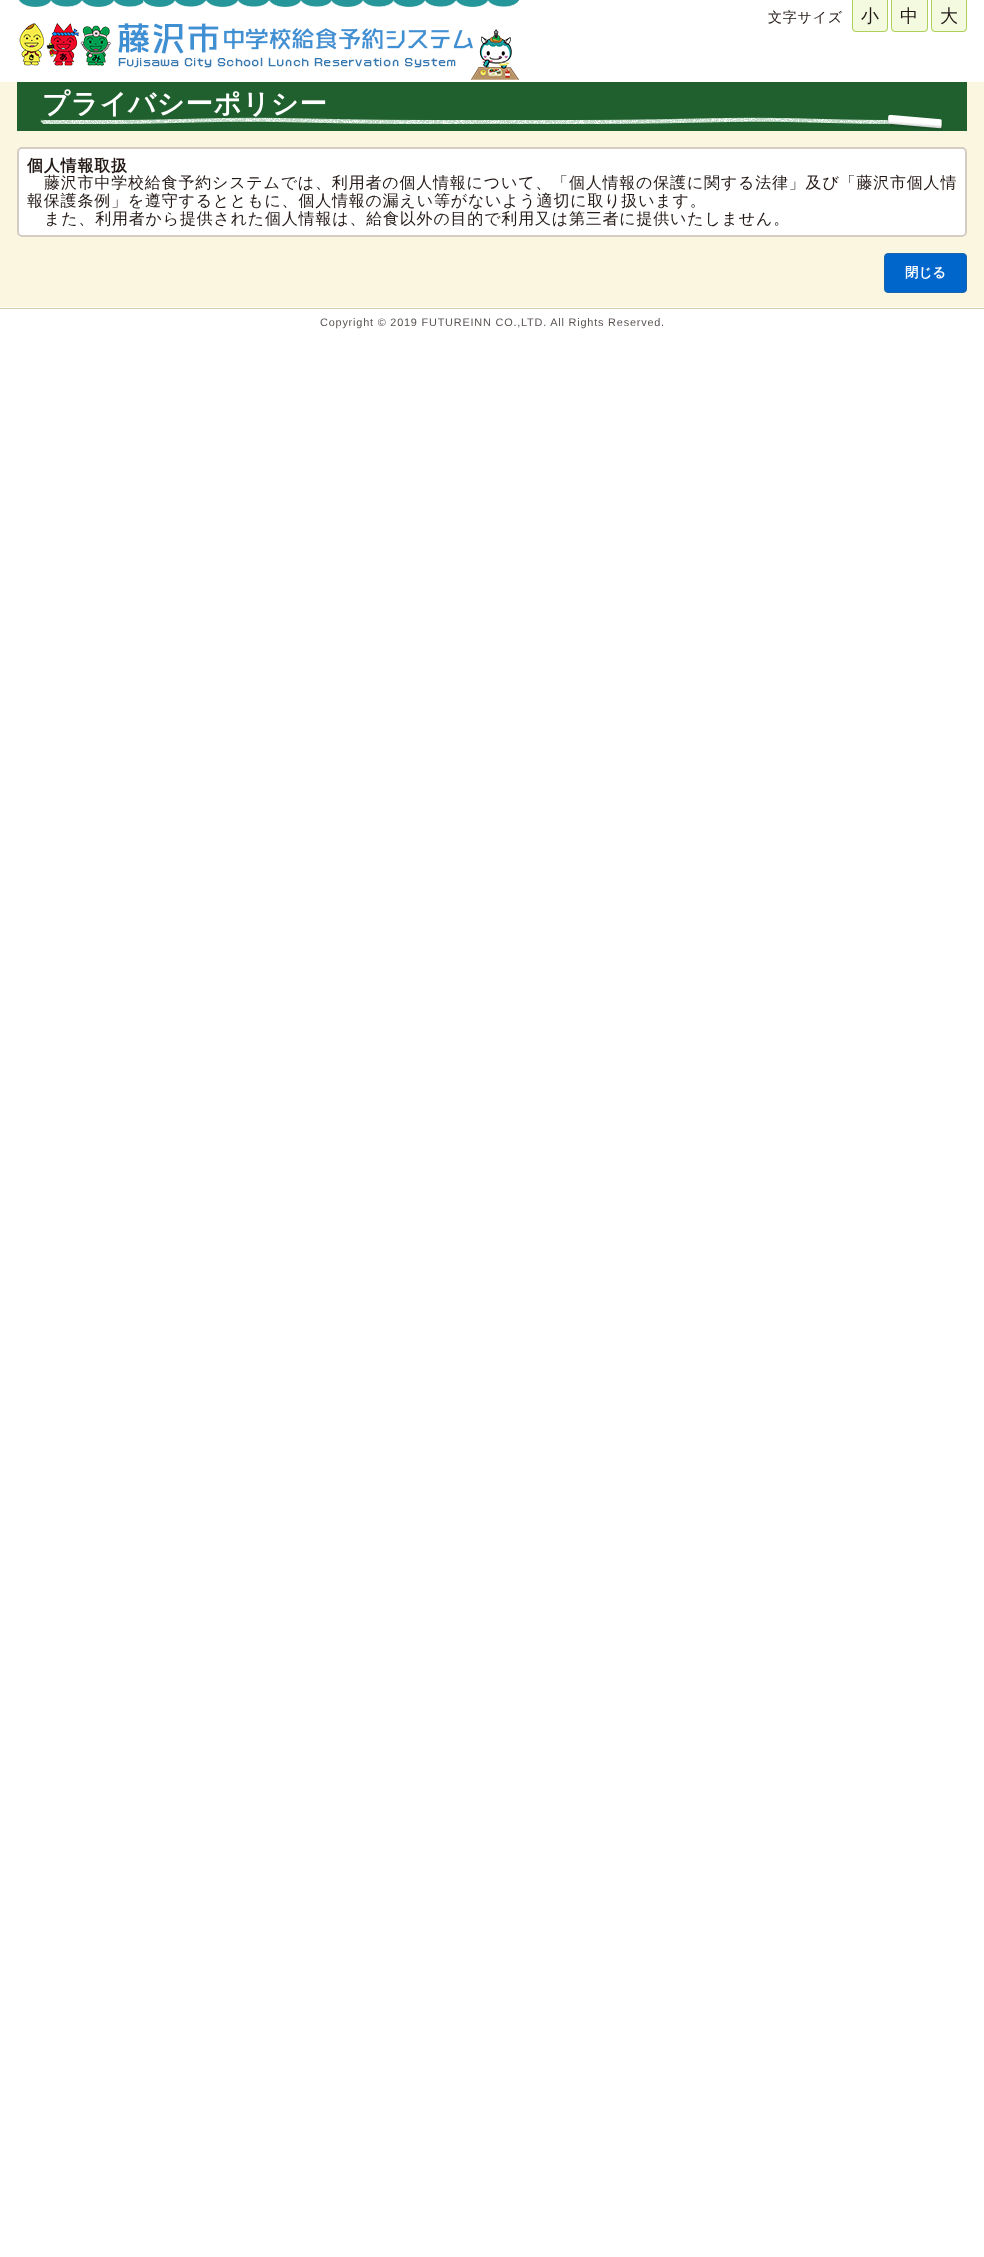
<!DOCTYPE html>
<meta charset="utf-8">
<style>body { margin: 0 } canvas { display: block }</style>
<canvas id="canvas" width="984" height="2257"></canvas>
<script type="module">
  const canvas = document.getElementById("canvas");
  const g = canvas.getContext("2d");
  g.miterLimit = 4;
  g.fontKerning = "normal";
  function drawText(s, x, y, [font, color]) {
    g.font = font;
    g.fillStyle = color;
    g.fillText(s, x, y);
  }
  function fillBox(x, y, w, h, color) {
    g.fillStyle = color;
    g.fillRect(x, y, w, h);
  }
  async function drawPicture(src, x, y, w, h) {
    const img = new Image();
    img.src = src;
    await img.decode();
    g.drawImage(img, x, y, w, h);
  }

  const s1 = ["500 14px WenQuanYi Zen Hei", "#221815"];
  const s2 = ["500 18px WenQuanYi Zen Hei", "#221815"];
  const s3 = ["bold 27.25px WenQuanYi Zen Hei", "#FFFFFF"];
  const s4 = ["bold 16px WenQuanYi Zen Hei", "#221815"];
  const s5 = ["500 16px WenQuanYi Zen Hei", "#221815"];
  const s6 = ["bold 13.5px WenQuanYi Zen Hei", "#FFFFFF"];
  const s7 = ["10.9px Liberation Sans", "#595250"];

  fillBox(0, 0, 984, 2257, "#FFFFFF");
  fillBox(0, 82, 984, 225, "#FAF6DF");
  await drawPicture("pic1.png", 19, 0, 500, 80);
  g.letterSpacing = "0.8px";
  drawText("文字サイズ", 768, 22, s1);
  g.fillStyle = "#F4FADF";
  g.beginPath();
  g.roundRect(852, 0, 36, 32, [0, 0, 4, 4]);
  g.fill();
  g.fillStyle = "#ADD15B";
  g.beginPath();
  g.moveTo(852, 0);
  g.lineTo(888, 0);
  g.lineTo(888, 28);
  g.bezierCurveTo(888, 30, 886, 32, 884, 32);
  g.lineTo(856, 32);
  g.bezierCurveTo(854, 32, 852, 30, 852, 28);
  g.closePath();
  g.moveTo(853, 0);
  g.lineTo(887, 0);
  g.lineTo(887, 28);
  g.bezierCurveTo(887, 29.5, 885.5, 31, 884, 31);
  g.lineTo(856, 31);
  g.bezierCurveTo(854.5, 31, 853, 29.5, 853, 28);
  g.closePath();
  g.fill("evenodd");
  drawText("小", 861, 22, s2);
  g.fillStyle = "#F4FADF";
  g.beginPath();
  g.roundRect(891, 0, 37, 32, [0, 0, 4, 4]);
  g.fill();
  g.fillStyle = "#ADD15B";
  g.beginPath();
  g.moveTo(891, 0);
  g.lineTo(928, 0);
  g.lineTo(928, 28);
  g.bezierCurveTo(928, 30, 926, 32, 924, 32);
  g.lineTo(895, 32);
  g.bezierCurveTo(893, 32, 891, 30, 891, 28);
  g.closePath();
  g.moveTo(892, 0);
  g.lineTo(927, 0);
  g.lineTo(927, 28);
  g.bezierCurveTo(927, 29.5, 925.5, 31, 924, 31);
  g.lineTo(895, 31);
  g.bezierCurveTo(893.5, 31, 892, 29.5, 892, 28);
  g.closePath();
  g.fill("evenodd");
  drawText("中", 900, 22, s2);
  g.fillStyle = "#F4FADF";
  g.beginPath();
  g.roundRect(931, 0, 36, 32, [0, 0, 4, 4]);
  g.fill();
  g.fillStyle = "#ADD15B";
  g.beginPath();
  g.moveTo(931, 0);
  g.lineTo(967, 0);
  g.lineTo(967, 28);
  g.bezierCurveTo(967, 30, 965, 32, 963, 32);
  g.lineTo(935, 32);
  g.bezierCurveTo(933, 32, 931, 30, 931, 28);
  g.closePath();
  g.moveTo(932, 0);
  g.lineTo(966, 0);
  g.lineTo(966, 28);
  g.bezierCurveTo(966, 29.5, 964.5, 31, 963, 31);
  g.lineTo(935, 31);
  g.bezierCurveTo(933.5, 31, 932, 29.5, 932, 28);
  g.closePath();
  g.fill("evenodd");
  drawText("大", 940, 22, s2);
  fillBox(17, 82, 950, 49, "#1F602E");
  await drawPicture("pic2.png", 40, 114, 903, 17);
  drawText("プライバシーポリシー", 42, 113, s3);
  g.beginPath();
  g.roundRect(18, 148, 948, 88, 4);
  g.fill();
  g.strokeStyle = "#D4CDC3";
  g.lineWidth = 2;
  g.stroke();
  drawText("個人情報取扱", 27, 171, s4);
  drawText("藤沢市中学校給食予約システムでは、利用者の個人情報について、「個人情報の保護に関する法律」及び「藤沢市個人情", 44, 188, s5);
  drawText("報保護条例」を遵守するとともに、個人情報の漏えい等がないよう適切に取り扱います。", 27, 206, s5);
  drawText("また、利用者から提供された個人情報は、給食以外の目的で利用又は第三者に提供いたしません。", 44, 224, s5);
  g.fillStyle = "#0066CC";
  g.beginPath();
  g.roundRect(884.5, 253.5, 82, 39, 3.5);
  g.fill();
  g.strokeStyle = "#1C65AD";
  g.lineWidth = 1;
  g.stroke();
  g.letterSpacing = "0px";
  drawText("閉じる", 905, 277, s6);
  fillBox(0, 308, 984, 1, "#D8CFB0");
  g.letterSpacing = "0.8px";
  drawText("Copyright © 2019 FUTUREINN CO.,LTD. All Rights Reserved.", 320, 326, s7);
</script>
